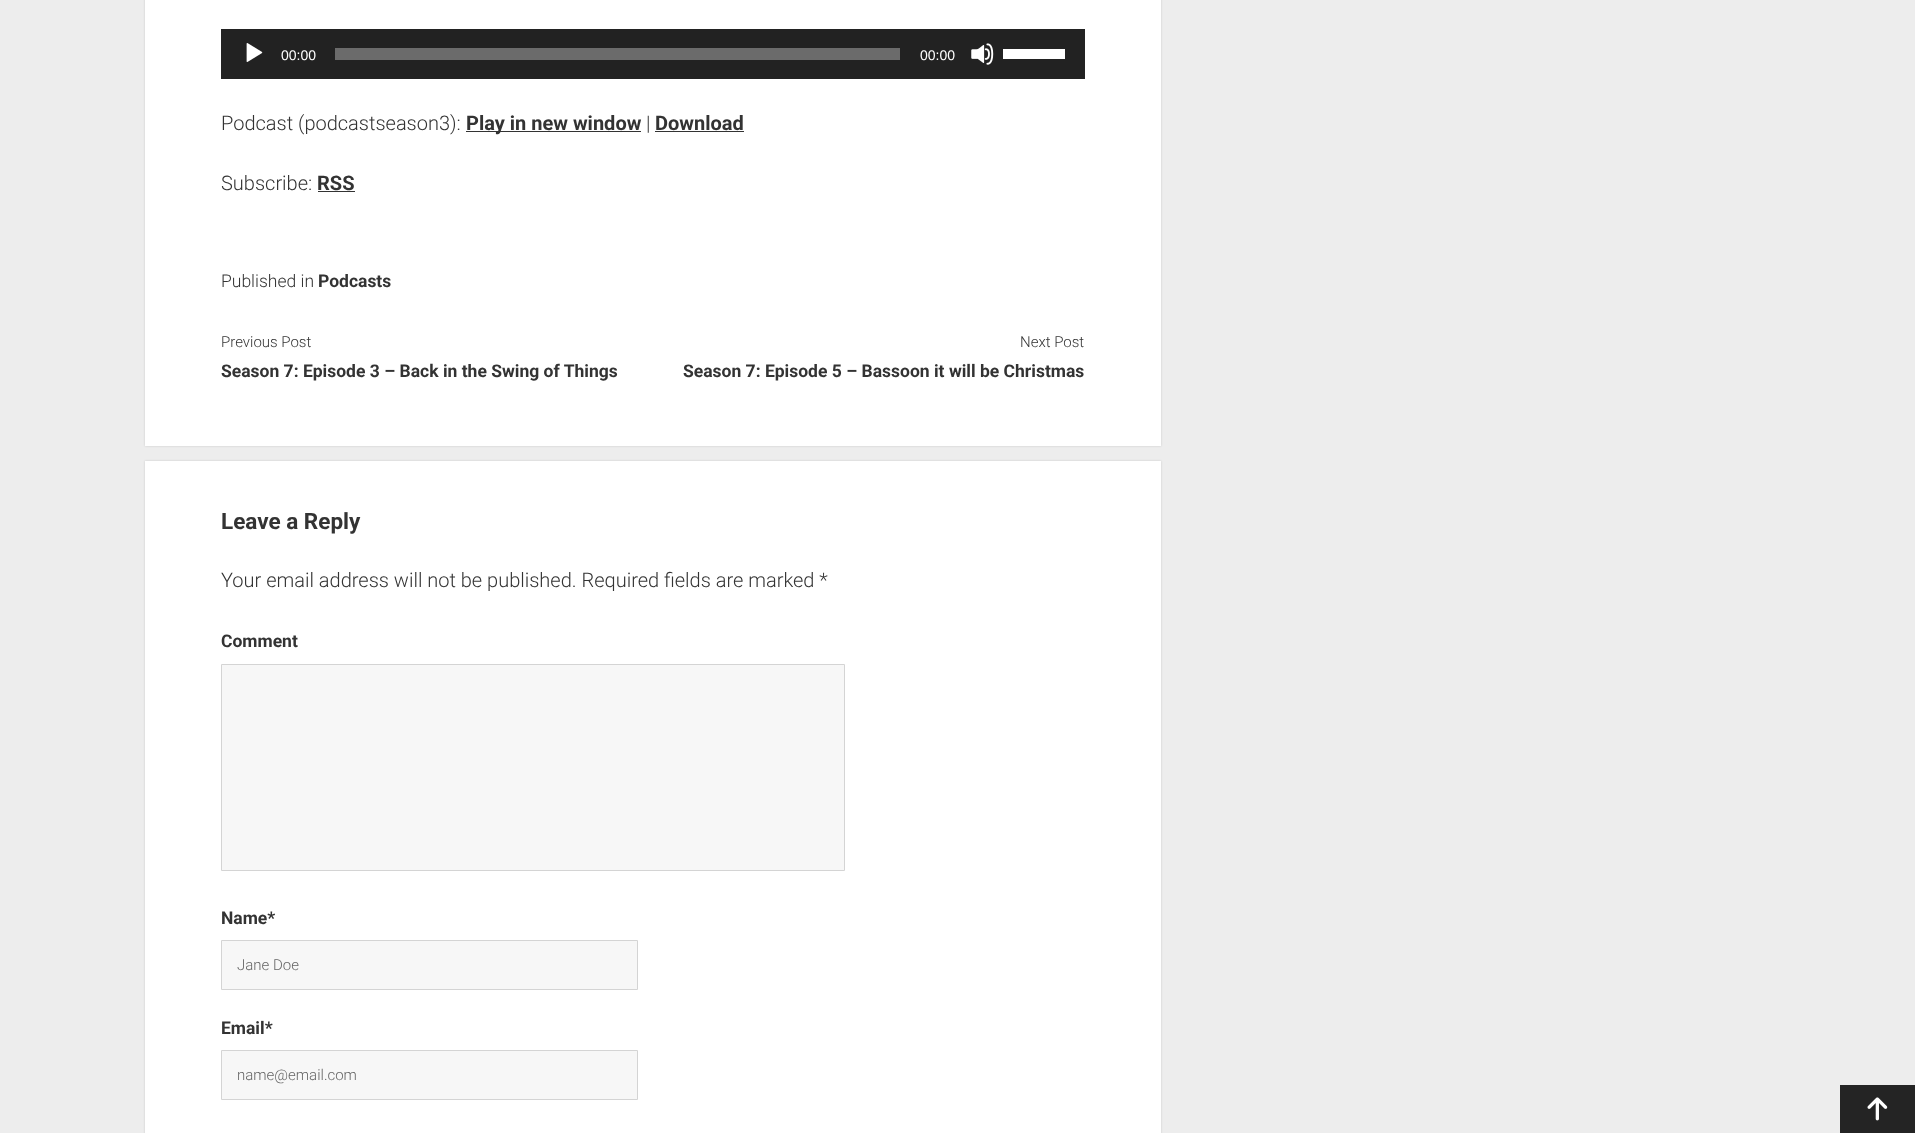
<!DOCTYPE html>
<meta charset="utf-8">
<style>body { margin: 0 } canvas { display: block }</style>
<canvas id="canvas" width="1915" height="1133"></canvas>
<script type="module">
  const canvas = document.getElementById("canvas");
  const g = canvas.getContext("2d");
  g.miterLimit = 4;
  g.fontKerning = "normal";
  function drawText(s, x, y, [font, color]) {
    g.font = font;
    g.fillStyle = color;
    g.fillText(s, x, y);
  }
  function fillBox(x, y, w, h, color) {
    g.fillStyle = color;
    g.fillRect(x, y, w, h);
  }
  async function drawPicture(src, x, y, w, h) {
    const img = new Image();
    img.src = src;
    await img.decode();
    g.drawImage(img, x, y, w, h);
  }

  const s1 = ["14px Liberation Sans", "#FFFFFF"];
  const s2 = ["300 20px Roboto", "#333333"];
  const s3 = ["bold 20px Roboto", "#333333"];
  const s4 = ["300 17.5px Roboto", "#333333"];
  const s5 = ["bold 17.5px Roboto", "#333333"];
  const s6 = ["300 15px Roboto", "#333333"];
  const s7 = ["bold 22.5px Roboto", "#333333"];
  const s8 = ["300 15px Roboto", "#666666"];

  fillBox(0, 0, 1915, 1133, "#EDEDED");
  g.fillStyle = "rgba(58, 58, 58, 0.2)";
  g.filter = "blur(1px)";
  g.beginPath();
  g.rect(145, -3, 1016, 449);
  g.fill();
  g.filter = "none";
  fillBox(145, 0, 1016, 446, "#FFFFFF");
  fillBox(221, 29, 864, 50, "#222222");
  await drawPicture("pic1.png", 246, 43, 17, 19);
  drawText("00:00", 281, 60, s1);
  fillBox(335, 48, 565, 12, "#6B6B6B");
  drawText("00:00", 920, 60, s1);
  await drawPicture("pic2.png", 971, 43, 23, 22);
  fillBox(1003, 49, 62, 10, "#FFFFFF");
  drawText("Podcast (podcastseason3):", 221, 130, s2);
  fillBox(466, 131, 175, 1, "#333333");
  drawText("Play in new window", 466, 130, s3);
  drawText("|", 646, 130, s2);
  drawText("Download", 655, 130, s3);
  fillBox(655, 131, 89, 1, "#333333");
  drawText("Subscribe:", 221, 190, s2);
  drawText("RSS", 317, 190, s3);
  fillBox(318, 191, 37, 1, "#333333");
  drawText("Published in", 221, 287, s4);
  drawText("Podcasts", 318, 287, s5);
  drawText("Previous Post", 221, 347, s6);
  drawText("Season 7: Episode 3 – Back in the Swing of Things", 221, 377, s5);
  drawText("Next Post", 1020, 347, s6);
  drawText("Season 7: Episode 5 – Bassoon it will be Christmas", 683, 377, s5);
  g.fillStyle = "rgba(58, 58, 58, 0.2)";
  g.filter = "blur(1px)";
  g.beginPath();
  g.rect(145, 461, 1016, 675);
  g.fill();
  g.filter = "none";
  fillBox(145, 461, 1016, 672, "#FFFFFF");
  drawText("Leave a Reply", 221, 529, s7);
  drawText("Your email address will not be published. Required fields are marked *", 221, 587, s2);
  drawText("Comment", 221, 647, s5);
  g.fillStyle = "#F7F7F7";
  g.beginPath();
  g.rect(221.5, 664.5, 623, 206);
  g.fill();
  g.strokeStyle = "#D4D4D4";
  g.stroke();
  drawText("Name*", 221, 924, s5);
  g.fillStyle = "#F7F7F7";
  g.beginPath();
  g.rect(221.5, 940.5, 416, 49);
  g.fill();
  g.stroke();
  drawText("Jane Doe", 237, 970, s8);
  drawText("Email*", 221, 1034, s5);
  g.fillStyle = "#F7F7F7";
  g.beginPath();
  g.rect(221.5, 1050.5, 416, 49);
  g.fill();
  g.stroke();
  drawText("name@email.com", 237, 1080, s8);
  fillBox(1840, 1085, 75, 48, "#242424");
  await drawPicture("pic3.png", 1867, 1097, 21, 24);
</script>
